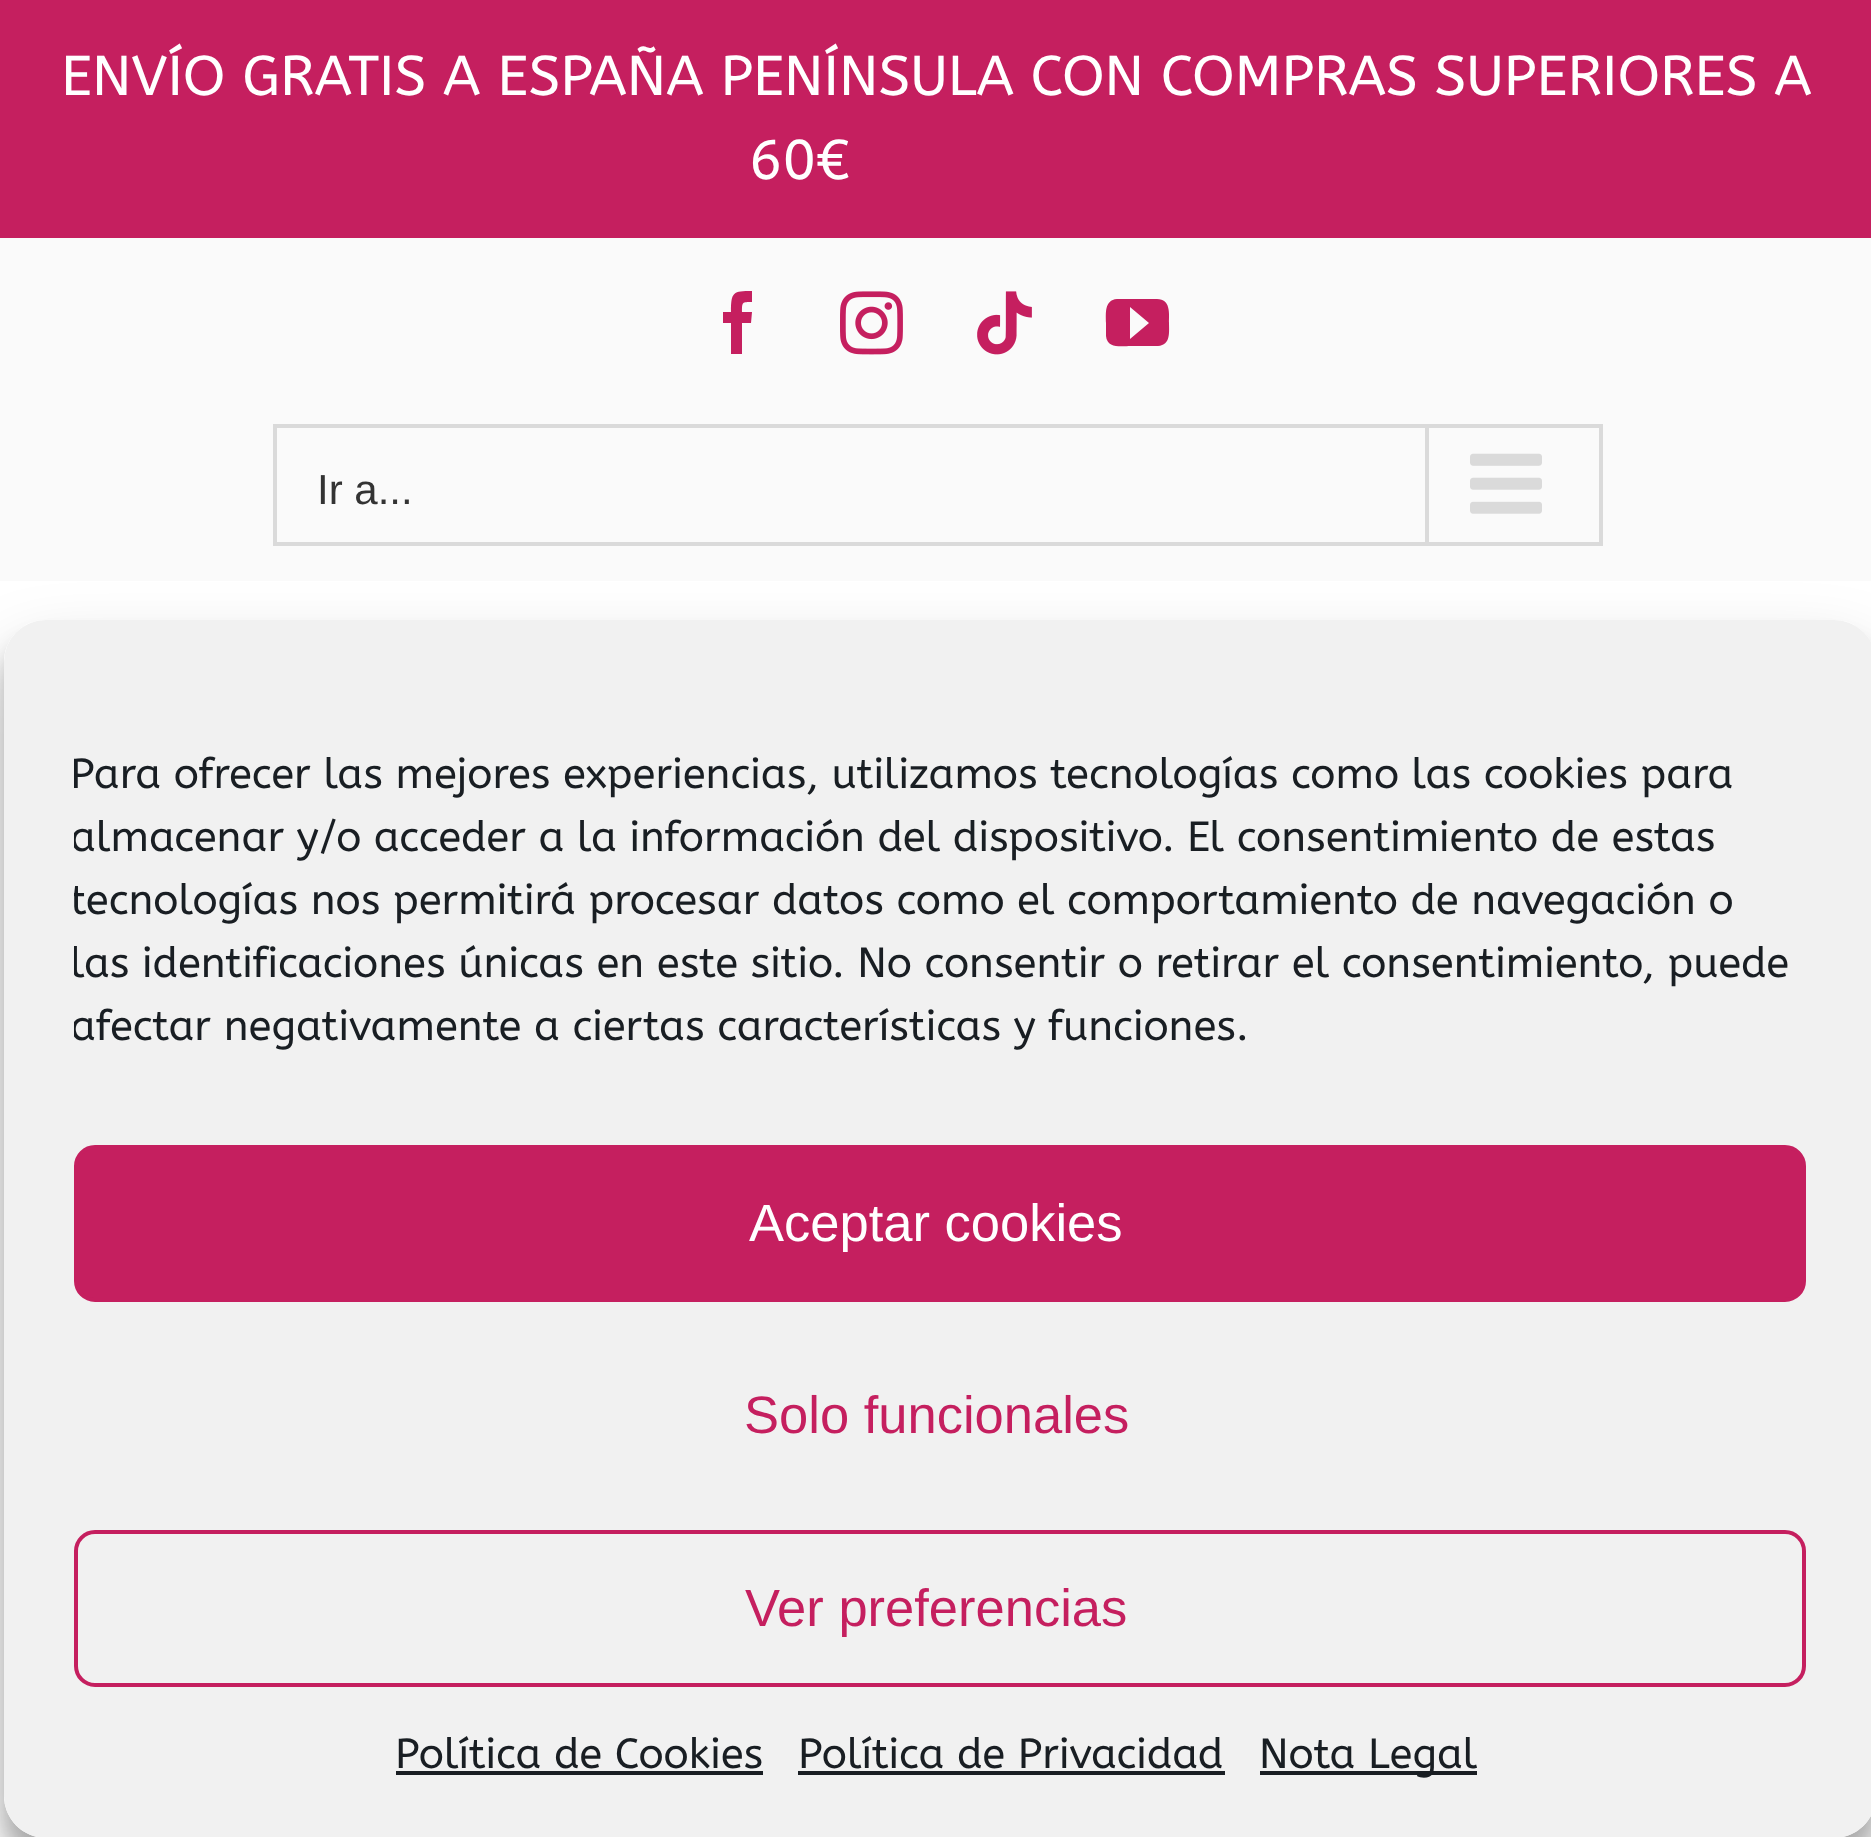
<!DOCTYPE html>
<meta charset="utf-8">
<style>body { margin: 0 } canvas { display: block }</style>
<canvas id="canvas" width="1871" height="1837"></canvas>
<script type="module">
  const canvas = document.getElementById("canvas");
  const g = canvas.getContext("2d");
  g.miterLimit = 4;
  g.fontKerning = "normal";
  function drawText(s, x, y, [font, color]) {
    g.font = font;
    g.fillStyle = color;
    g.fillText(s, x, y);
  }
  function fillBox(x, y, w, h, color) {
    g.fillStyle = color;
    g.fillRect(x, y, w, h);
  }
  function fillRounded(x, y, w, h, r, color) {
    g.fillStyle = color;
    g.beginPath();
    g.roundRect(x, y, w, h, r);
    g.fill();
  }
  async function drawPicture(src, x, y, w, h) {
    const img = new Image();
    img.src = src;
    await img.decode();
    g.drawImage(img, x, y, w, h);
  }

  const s1 = ["56px ABeeZee", "#FFFFFF"];
  const s2 = ["42px Liberation Sans", "#333333"];
  const s3 = ["42px ABeeZee", "#191E23"];
  const s4 = ["52.5px Liberation Sans", "#FFFFFF"];
  const s5 = ["52.5px Liberation Sans", "#C51F5F"];

  fillBox(0, 0, 1871, 1837, "#FFFFFF");
  fillBox(0, 0, 1871, 238, "#C51F5F");
  drawText("ENVÍO GRATIS A ESPAÑA PENÍNSULA CON COMPRAS SUPERIORES A", 61, 95, s1);
  drawText("60€", 749, 179, s1);
  fillBox(0, 238, 1871, 343, "#FAFAFA");
  g.fillStyle = "#C51F5F";
  g.beginPath();
  g.moveTo(742, 354);
  g.lineTo(731, 354);
  g.lineTo(731, 323);
  g.lineTo(723, 323);
  g.lineTo(723, 312);
  g.lineTo(731, 312);
  g.bezierCurveTo(731, 292, 733, 291, 752, 291);
  g.lineTo(752, 302);
  g.bezierCurveTo(742, 302, 742, 302, 742, 312);
  g.lineTo(752, 312);
  g.lineTo(751, 323);
  g.lineTo(742, 323);
  g.closePath();
  g.fill();
  await drawPicture("pic1.png", 840, 291, 63, 64);
  await drawPicture("pic2.png", 977, 291, 55, 64);
  g.beginPath();
  g.moveTo(1157, 299);
  g.lineTo(1117, 299);
  g.bezierCurveTo(1104, 300, 1106, 314, 1106, 323);
  g.lineTo(1106, 336);
  g.bezierCurveTo(1107, 349, 1122, 346, 1131, 346);
  g.lineTo(1158, 346);
  g.bezierCurveTo(1171, 345, 1169, 332, 1169, 323);
  g.bezierCurveTo(1169, 314, 1171, 299, 1157, 299);
  g.closePath();
  g.moveTo(1130, 339);
  g.lineTo(1130, 307);
  g.lineTo(1149, 323);
  g.closePath();
  g.fill();
  g.strokeStyle = "#DADADA";
  g.lineWidth = 4;
  g.strokeRect(275, 426, 1326, 118);
  drawText("Ir a...", 317, 504, s2);
  fillBox(1425, 427, 4, 116, "#DADADA");
  await drawPicture("pic3.png", 1470, 453, 72, 61);
  g.save();
  g.beginPath();
  g.moveTo(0, 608);
  g.lineTo(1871, 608);
  g.lineTo(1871, 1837);
  g.lineTo(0, 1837);
  g.closePath();
  g.moveTo(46, 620);
  g.lineTo(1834, 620);
  g.bezierCurveTo(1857, 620, 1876, 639, 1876, 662);
  g.lineTo(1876, 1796);
  g.bezierCurveTo(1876, 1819, 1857, 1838, 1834, 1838);
  g.lineTo(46, 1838);
  g.bezierCurveTo(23, 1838, 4, 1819, 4, 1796);
  g.lineTo(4, 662);
  g.bezierCurveTo(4, 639, 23, 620, 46, 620);
  g.closePath();
  g.clip("evenodd");
  g.fillStyle = "rgba(0, 0, 0, 0.23)";
  g.filter = "blur(10.5px)";
  g.beginPath();
  g.roundRect(4, 641, 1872, 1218, 42);
  g.fill();
  g.filter = "none";
  g.restore();
  g.save();
  g.beginPath();
  g.moveTo(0, 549);
  g.lineTo(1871, 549);
  g.lineTo(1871, 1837);
  g.lineTo(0, 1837);
  g.closePath();
  g.moveTo(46, 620);
  g.lineTo(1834, 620);
  g.bezierCurveTo(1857, 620, 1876, 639, 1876, 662);
  g.lineTo(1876, 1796);
  g.bezierCurveTo(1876, 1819, 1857, 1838, 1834, 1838);
  g.lineTo(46, 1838);
  g.bezierCurveTo(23, 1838, 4, 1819, 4, 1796);
  g.lineTo(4, 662);
  g.bezierCurveTo(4, 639, 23, 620, 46, 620);
  g.closePath();
  g.clip("evenodd");
  g.fillStyle = "rgba(0, 0, 0, 0.19)";
  g.filter = "blur(35px)";
  g.beginPath();
  g.roundRect(4, 655, 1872, 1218, 42);
  g.fill();
  g.filter = "none";
  g.restore();
  fillRounded(4, 620, 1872, 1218, 42, "#F1F1F1");
  g.save();
  g.beginPath();
  g.rect(74, 742, 1732, 333);
  g.clip();
  drawText("Para ofrecer las mejores experiencias, utilizamos tecnologías como las cookies para", 70, 788, s3);
  drawText("almacenar y/o acceder a la información del dispositivo. El consentimiento de estas", 70, 851, s3);
  drawText("tecnologías nos permitirá procesar datos como el comportamiento de navegación o", 70, 914, s3);
  drawText("las identificaciones únicas en este sitio. No consentir o retirar el consentimiento, puede", 70, 977, s3);
  drawText("afectar negativamente a ciertas características y funciones.", 70, 1040, s3);
  g.restore();
  g.fillStyle = "#C51F5F";
  g.beginPath();
  g.roundRect(76, 1147, 1728, 153, 19);
  g.fill();
  g.strokeStyle = "#C51F5F";
  g.stroke();
  drawText("Aceptar cookies", 749, 1241, s4);
  drawText("Solo funcionales", 744, 1433, s5);
  g.beginPath();
  g.roundRect(76, 1532, 1728, 153, 19);
  g.stroke();
  drawText("Ver preferencias", 745, 1626, s5);
  drawText("Política de Cookies", 395, 1768, s3);
  fillBox(396, 1771, 367, 4, "#191E23");
  drawText("Política de Privacidad", 798, 1768, s3);
  fillBox(798, 1771, 427, 4, "#191E23");
  fillBox(1260, 1771, 217, 4, "#191E23");
  drawText("Nota Legal", 1259, 1768, s3);
</script>
